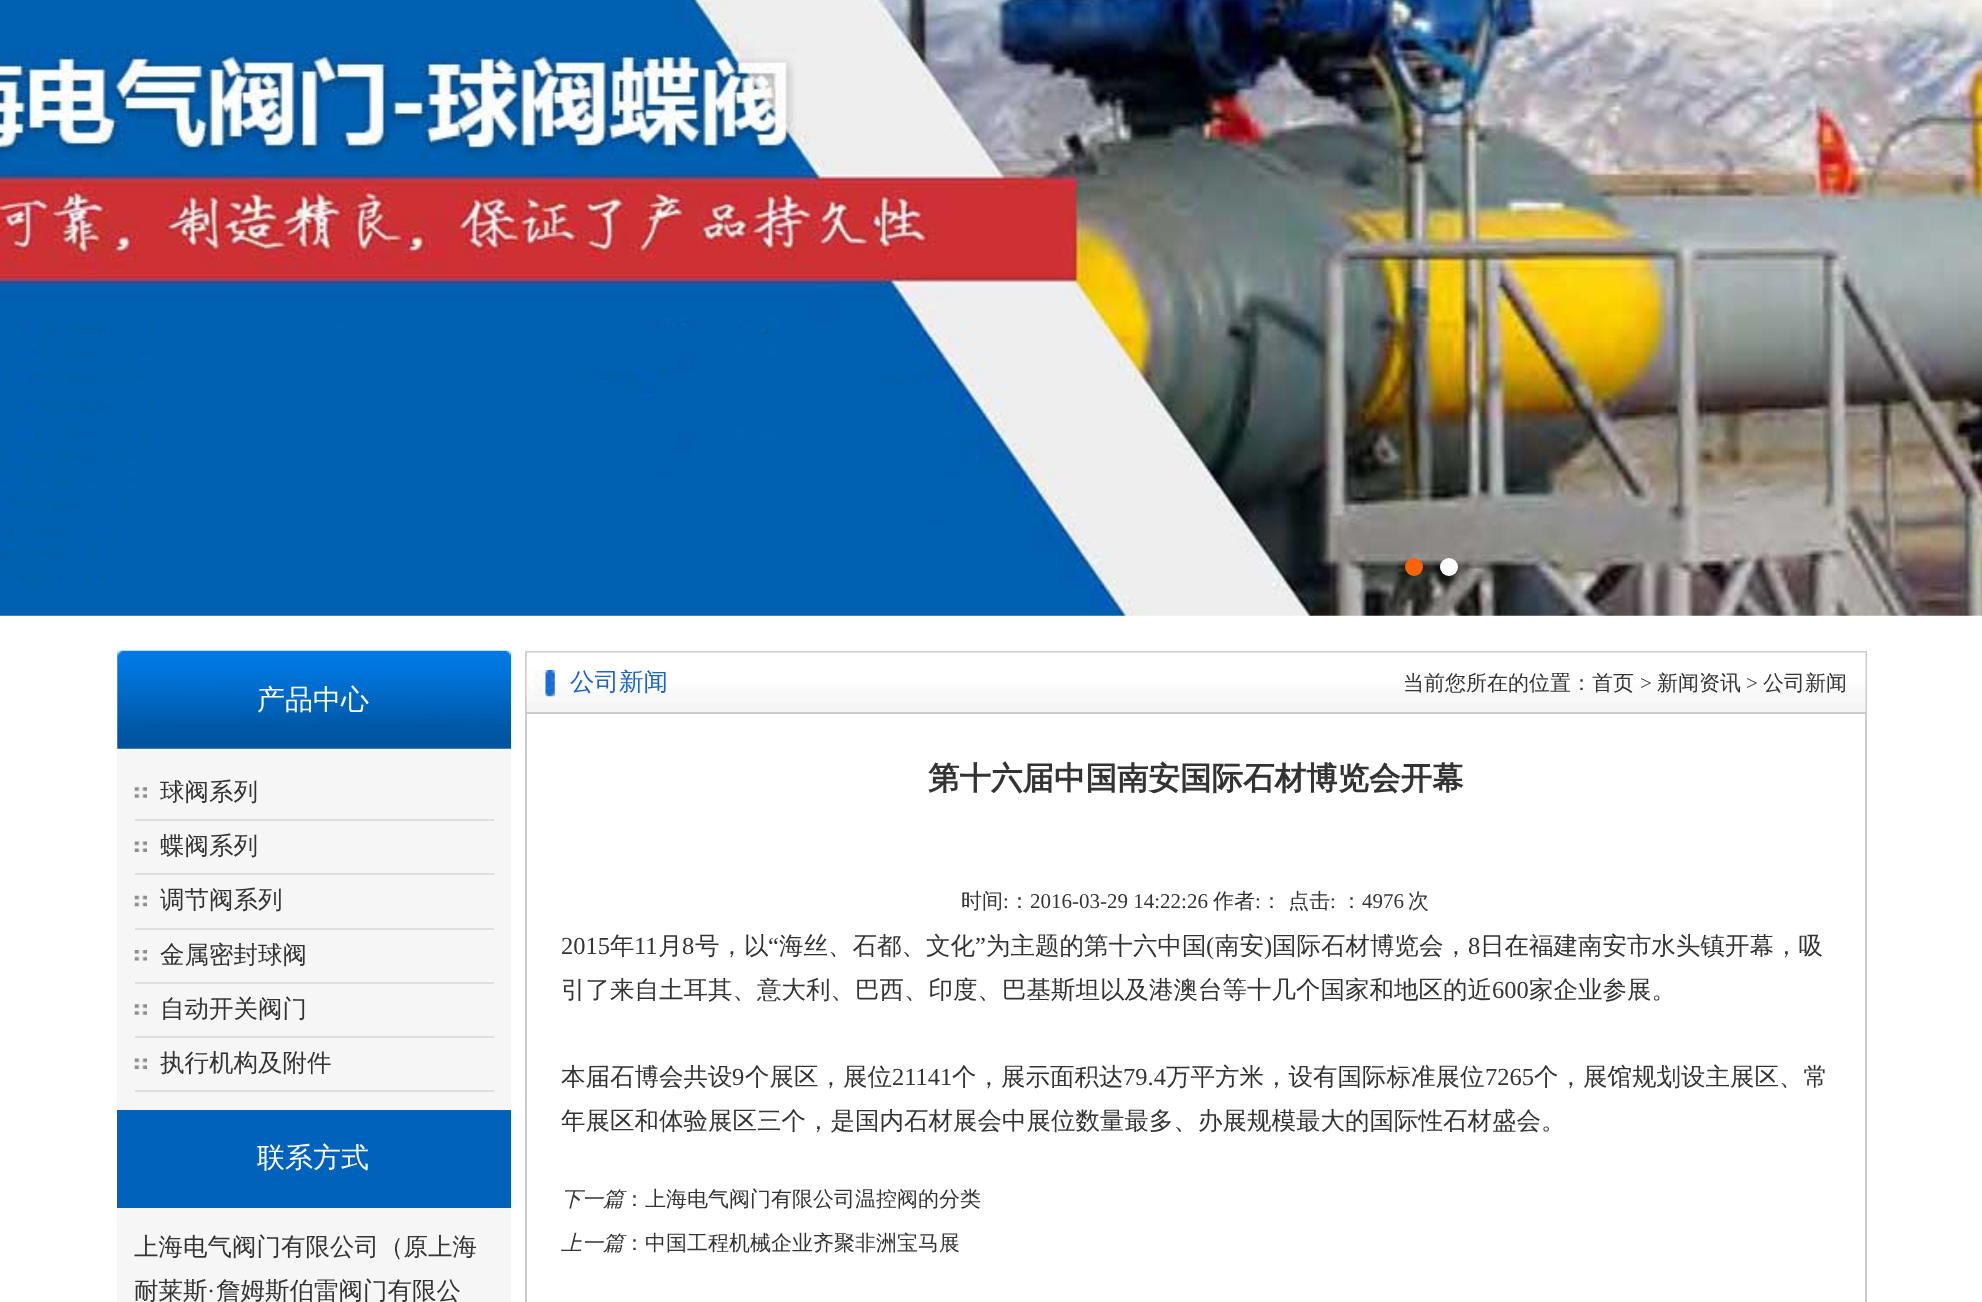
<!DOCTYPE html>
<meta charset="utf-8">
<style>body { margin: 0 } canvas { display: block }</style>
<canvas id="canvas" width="1982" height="1302"></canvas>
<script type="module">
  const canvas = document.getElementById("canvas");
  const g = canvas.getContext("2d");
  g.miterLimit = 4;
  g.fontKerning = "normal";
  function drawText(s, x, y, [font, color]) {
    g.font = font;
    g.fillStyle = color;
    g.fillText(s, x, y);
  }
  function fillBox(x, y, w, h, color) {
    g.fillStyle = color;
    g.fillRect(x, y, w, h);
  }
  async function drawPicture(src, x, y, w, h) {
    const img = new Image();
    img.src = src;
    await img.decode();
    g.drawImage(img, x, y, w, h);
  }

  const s1 = ["500 28px WenQuanYi Zen Hei", "#FFFFFF"];
  const s2 = ["500 24.5px WenQuanYi Zen Hei", "#333333"];
  const s3 = ["24.5px Liberation Serif", "#333333"];
  const s4 = ["500 24.5px WenQuanYi Zen Hei", "#1C64C6"];
  const s5 = ["500 21px WenQuanYi Zen Hei", "#333333"];
  const s6 = ["21px Liberation Serif", "#333333"];
  const s7 = ["bold 31.5px WenQuanYi Zen Hei", "#333333"];
  const s8 = ["italic 500 21px WenQuanYi Zen Hei", "#333333"];

  fillBox(0, 0, 1982, 1302, "#FFFFFF");
  await drawPicture("pic1.png", 0, 0, 1982, 616);
  g.fillStyle = "#F7640B";
  g.beginPath();
  g.arc(1414, 567, 9, 0, Math.PI * 2);
  g.fill();
  g.fillStyle = "#FFFFFF";
  g.beginPath();
  g.arc(1449, 567, 9, 0, Math.PI * 2);
  g.fill();
  fillBox(117, 651, 394, 651, "#F6F6F6");
  await drawPicture("pic2.png", 117, 650, 394, 99);
  drawText("产品中心", 257, 709, s1);
  await drawPicture("pic3.png", 134, 787, 13, 11);
  fillBox(135, 819, 359, 2, "#DFDFDF");
  drawText("球阀系列", 160, 800, s2);
  await drawPicture("pic4.png", 134, 841, 13, 11);
  fillBox(135, 873, 359, 2, "#DFDFDF");
  drawText("蝶阀系列", 160, 854, s2);
  await drawPicture("pic5.png", 134, 895, 13, 12);
  fillBox(135, 928, 359, 2, "#DFDFDF");
  drawText("调节阀系列", 160, 908, s2);
  await drawPicture("pic6.png", 134, 950, 13, 11);
  fillBox(135, 982, 359, 2, "#DFDFDF");
  drawText("金属密封球阀", 160, 963, s2);
  await drawPicture("pic3.png", 134, 1004, 13, 11);
  fillBox(135, 1036, 359, 2, "#DFDFDF");
  drawText("自动开关阀门", 160, 1017, s2);
  await drawPicture("pic4.png", 134, 1058, 13, 11);
  fillBox(135, 1090, 359, 2, "#DFDFDF");
  drawText("执行机构及附件", 160, 1071, s2);
  fillBox(117, 1110, 394, 98, "#0062BA");
  drawText("联系方式", 257, 1167, s1);
  drawText("上海电气阀门有限公司（原上海", 134, 1255, s2);
  drawText("耐莱斯", 134, 1299, s2);
  drawText("·", 207, 1299, s3);
  drawText("詹姆斯伯雷阀门有限公", 216, 1299, s2);
  g.strokeStyle = "#CCCCCC";
  g.lineWidth = 2;
  g.strokeRect(526, 652, 1340, 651);
  await drawPicture("pic7.png", 526, 652, 1340, 60);
  fillBox(527, 712, 1339, 2, "#CCCCCC");
  await drawPicture("pic8.png", 526, 670, 29, 27);
  drawText("公司新闻", 570, 690, s4);
  drawText("当前您所在的位置：首页", 1403, 690, s5);
  drawText(">", 1640, 690, s6);
  drawText("新闻资讯", 1657, 690, s5);
  drawText(">", 1746, 690, s6);
  drawText("公司新闻", 1763, 690, s5);
  drawText("第十六届中国南安国际石材博览会开幕", 928, 789, s7);
  drawText("时间", 961, 908, s5);
  drawText(":", 1003, 908, s6);
  drawText("：", 1009, 908, s5);
  drawText("2016-03-29 14:22:26", 1030, 908, s6);
  drawText("作者", 1213, 908, s5);
  drawText(":", 1255, 908, s6);
  drawText("： 点击", 1261, 908, s5);
  drawText(":", 1330, 908, s6);
  drawText("：", 1341, 908, s5);
  drawText("4976", 1362, 908, s6);
  drawText("次", 1408, 908, s5);
  drawText("2015", 561, 954, s3);
  drawText("年", 610, 954, s2);
  drawText("11", 634, 954, s3);
  drawText("月", 658, 954, s2);
  drawText("8", 682, 954, s3);
  drawText("号，以", 695, 954, s2);
  drawText("“", 768, 954, s3);
  drawText("海丝、石都、文化", 779, 954, s2);
  drawText("”", 975, 954, s3);
  drawText("为主题的第十六中国", 986, 954, s2);
  drawText("(", 1206, 954, s3);
  drawText("南安", 1215, 954, s2);
  drawText(")", 1264, 954, s3);
  drawText("国际石材博览会，", 1272, 954, s2);
  drawText("8", 1468, 954, s3);
  drawText("日在福建南安市水头镇开幕，吸", 1480, 954, s2);
  drawText("引了来自土耳其、意大利、巴西、印度、巴基斯坦以及港澳台等十几个国家和地区的近", 561, 998, s2);
  drawText("600", 1492, 998, s3);
  drawText("家企业参展。", 1529, 998, s2);
  drawText("本届石博会共设", 561, 1085, s2);
  drawText("9", 732, 1085, s3);
  drawText("个展区，展位", 745, 1085, s2);
  drawText("21141", 892, 1085, s3);
  drawText("个，展示面积达", 952, 1085, s2);
  drawText("79.4", 1123, 1085, s3);
  drawText("万平方米，设有国际标准展位", 1166, 1085, s2);
  drawText("7265", 1485, 1085, s3);
  drawText("个，展馆规划设主展区、常", 1534, 1085, s2);
  drawText("年展区和体验展区三个，是国内石材展会中展位数量最多、办展规模最大的国际性石材盛会。", 561, 1129, s2);
  drawText("下一篇", 561, 1206, s8);
  drawText("：上海电气阀门有限公司温控阀的分类", 624, 1206, s5);
  drawText("上一篇", 561, 1250, s8);
  drawText("：中国工程机械企业齐聚非洲宝马展", 624, 1250, s5);
</script>
